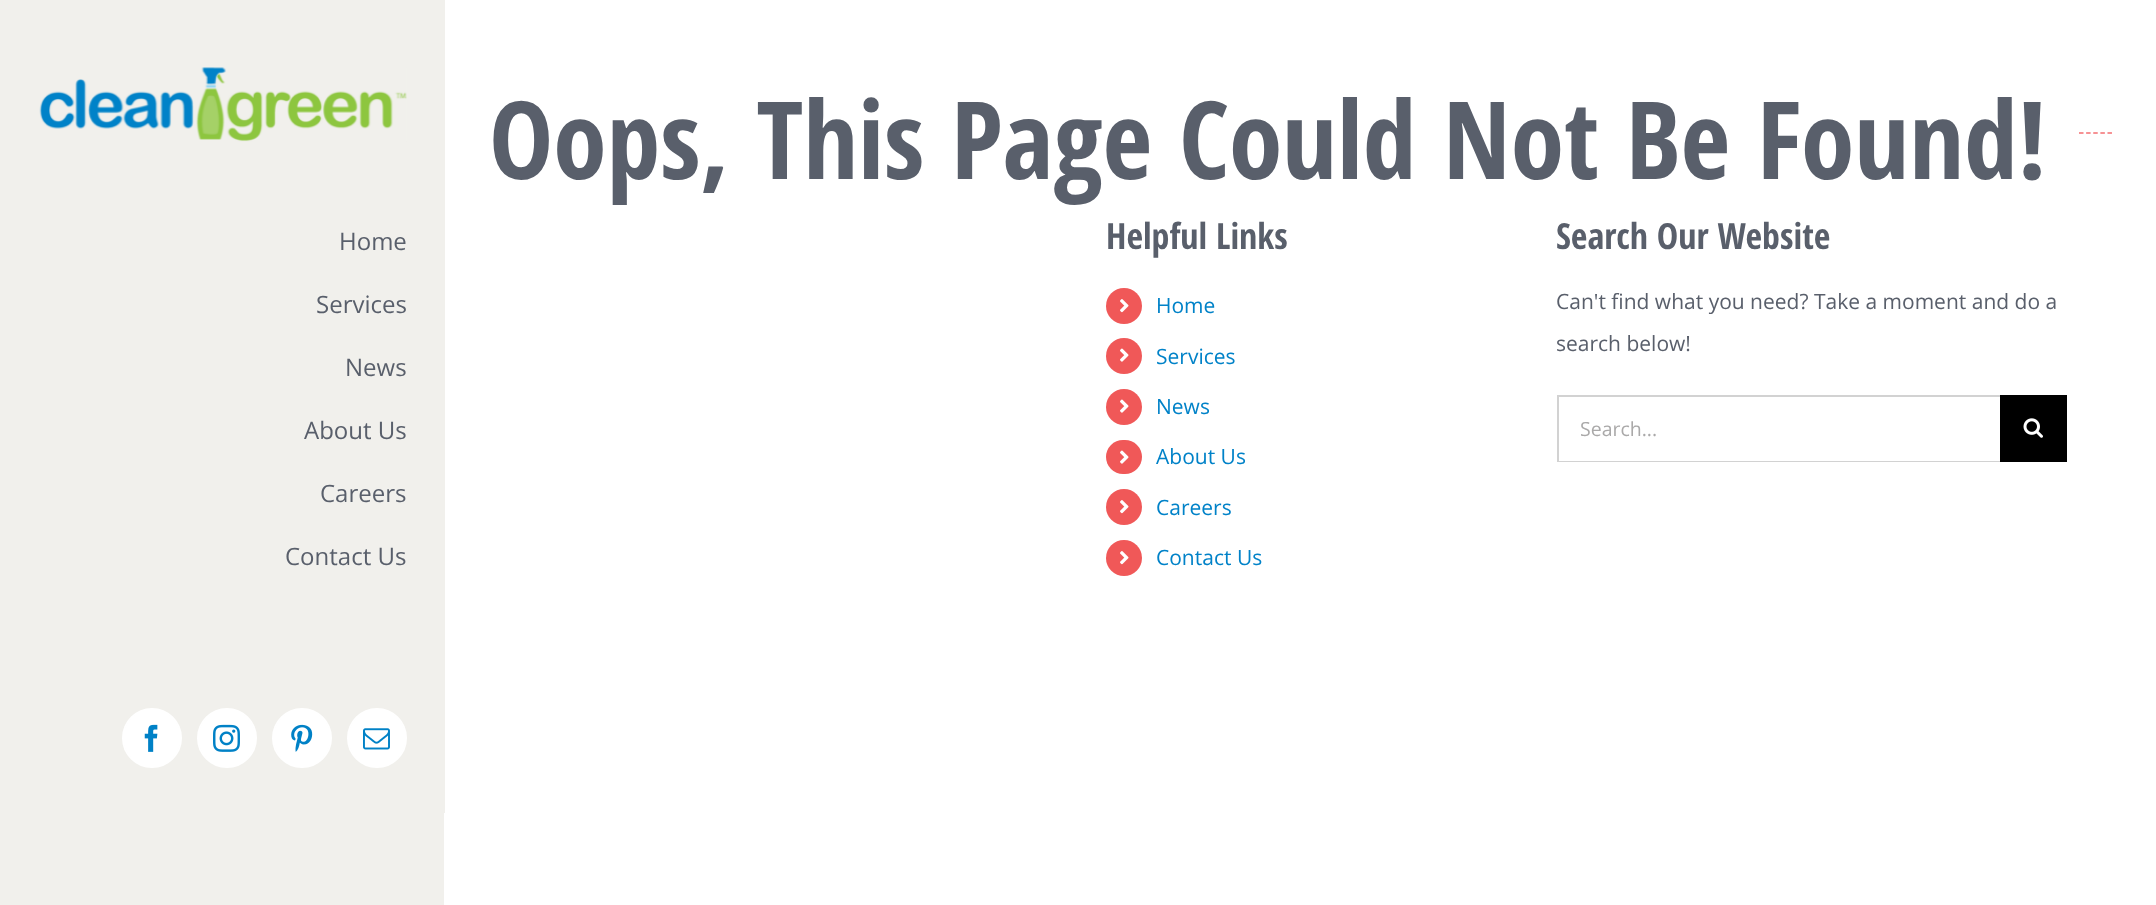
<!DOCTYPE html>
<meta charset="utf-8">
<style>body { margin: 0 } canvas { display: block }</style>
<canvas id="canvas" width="2156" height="905"></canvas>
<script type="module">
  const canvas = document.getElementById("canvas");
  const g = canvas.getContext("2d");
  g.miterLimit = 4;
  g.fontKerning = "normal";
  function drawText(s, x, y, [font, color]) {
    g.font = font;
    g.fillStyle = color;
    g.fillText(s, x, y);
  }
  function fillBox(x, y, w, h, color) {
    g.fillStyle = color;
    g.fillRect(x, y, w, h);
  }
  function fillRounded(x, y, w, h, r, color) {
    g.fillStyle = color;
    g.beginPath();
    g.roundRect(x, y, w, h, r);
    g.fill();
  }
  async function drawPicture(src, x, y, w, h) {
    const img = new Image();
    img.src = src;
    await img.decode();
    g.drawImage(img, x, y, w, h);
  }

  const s1 = ["24px Open Sans", "#595F6B"];
  const s2 = ["bold 108px Open Sans Condensed", "#595F6B"];
  const s3 = ["bold 36px Open Sans Condensed", "#595F6B"];
  const s4 = ["21px Open Sans", "#0082C8"];
  const s5 = ["21px Open Sans", "#595F6B"];
  const s6 = ["19.5px Open Sans", "#AAA9A9"];

  fillBox(0, 0, 2156, 905, "#FFFFFF");
  fillBox(0, 0, 444, 905, "#F1F0EC");
  await drawPicture("pic1.png", 39, 67, 368, 75);
  drawText("Home", 339, 250, s1);
  drawText("Services", 316, 313, s1);
  drawText("News", 345, 376, s1);
  drawText("About Us", 304, 439, s1);
  drawText("Careers", 320, 502, s1);
  drawText("Contact Us", 285, 565, s1);
  g.fillStyle = "#FFFFFF";
  g.beginPath();
  g.arc(152, 738, 29, 0, Math.PI * 2);
  g.fill();
  g.strokeStyle = "#FFFFFF";
  g.lineWidth = 2;
  g.stroke();
  await drawPicture("pic2.png", 144, 724, 14, 28);
  g.beginPath();
  g.arc(227, 738, 29, 0, Math.PI * 2);
  g.fill();
  g.stroke();
  await drawPicture("pic3.png", 213, 724, 27, 28);
  g.beginPath();
  g.arc(302, 738, 29, 0, Math.PI * 2);
  g.fill();
  g.stroke();
  await drawPicture("pic4.png", 291, 724, 22, 28);
  g.beginPath();
  g.arc(377, 738, 29, 0, Math.PI * 2);
  g.fill();
  g.stroke();
  await drawPicture("pic5.png", 363, 728, 27, 22);
  fillBox(444, 0, 1, 813, "#F1F0EC");
  drawText("Oops, This Page Could Not Be Found!", 489, 179, s2);
  g.beginPath();
  g.moveTo(2079, 133);
  g.lineTo(2112, 133);
  g.strokeStyle = "#F46F72";
  g.lineWidth = 1.5;
  g.setLineDash([4.5, 2.62]);
  g.stroke();
  drawText("Helpful Links", 1106, 249, s3);
  g.fillStyle = "#F05858";
  g.beginPath();
  g.arc(1124, 306, 18, 0, Math.PI * 2);
  g.fill();
  await drawPicture("pic6.png", 1120, 299, 9, 14);
  drawText("Home", 1156, 313, s4);
  g.fillStyle = "#F05858";
  g.beginPath();
  g.arc(1124, 356, 18, 0, Math.PI * 2);
  g.fill();
  await drawPicture("pic7.png", 1120, 348, 9, 14);
  drawText("Services", 1156, 364, s4);
  g.fillStyle = "#F05858";
  g.beginPath();
  g.arc(1124, 407, 18, 0, Math.PI * 2);
  g.fill();
  await drawPicture("pic7.png", 1120, 399, 9, 14);
  drawText("News", 1156, 414, s4);
  fillRounded(1106, 440, 36, 34, 17, "#F05858");
  await drawPicture("pic7.png", 1120, 450, 9, 14);
  drawText("About Us", 1156, 464, s4);
  g.fillStyle = "#F05858";
  g.beginPath();
  g.arc(1124, 507, 18, 0, Math.PI * 2);
  g.fill();
  await drawPicture("pic6.png", 1120, 500, 9, 14);
  drawText("Careers", 1156, 515, s4);
  g.fillStyle = "#F05858";
  g.beginPath();
  g.arc(1124, 558, 18, 0, Math.PI * 2);
  g.fill();
  await drawPicture("pic6.png", 1120, 551, 9, 14);
  drawText("Contact Us", 1156, 565, s4);
  drawText("Search Our Website", 1556, 249, s3);
  drawText("Can't find what you need? Take a moment and do a", 1556, 309, s5);
  drawText("search below!", 1556, 351, s5);
  fillBox(1557, 395, 443, 2, "#D2D2D2");
  fillBox(1557, 461, 443, 1, "#D2D2D2");
  fillBox(1557, 395, 2, 67, "#D2D2D2");
  drawText("Search...", 1580, 436, s6);
  fillBox(2000, 395, 67, 67, "#000000");
  await drawPicture("pic8.png", 2023, 418, 20, 20);
</script>
